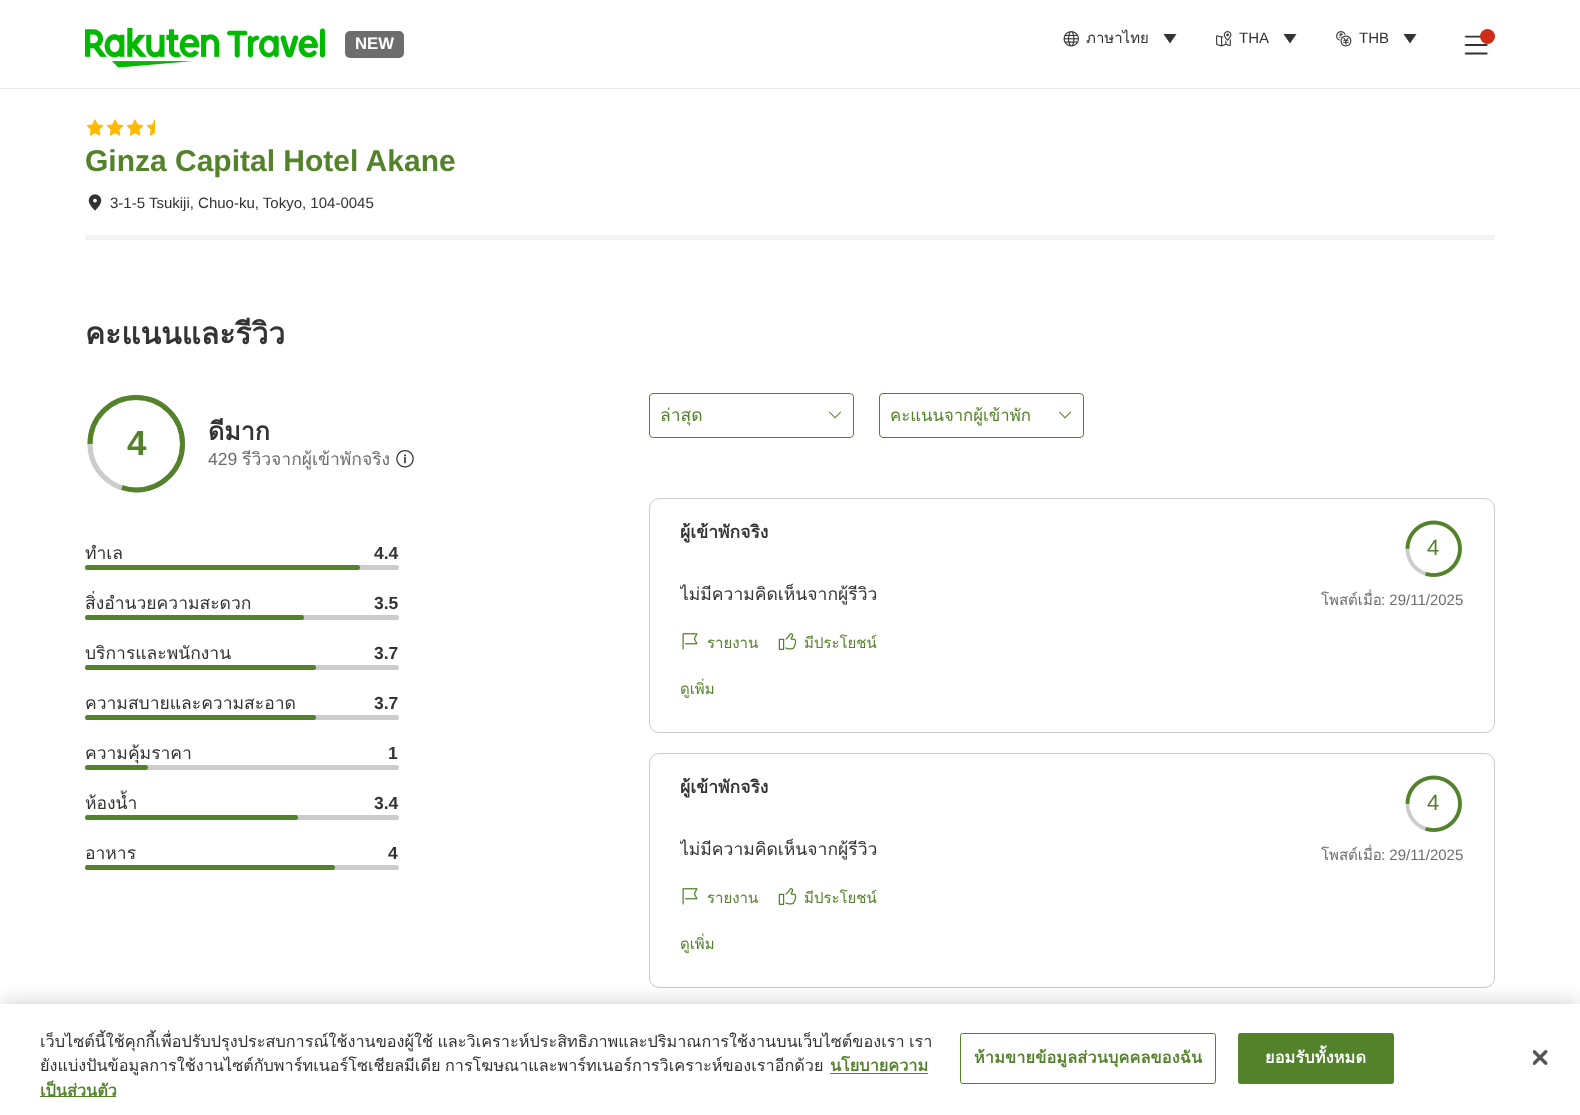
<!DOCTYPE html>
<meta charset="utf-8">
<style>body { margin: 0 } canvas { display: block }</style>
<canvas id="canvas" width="1580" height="1115"></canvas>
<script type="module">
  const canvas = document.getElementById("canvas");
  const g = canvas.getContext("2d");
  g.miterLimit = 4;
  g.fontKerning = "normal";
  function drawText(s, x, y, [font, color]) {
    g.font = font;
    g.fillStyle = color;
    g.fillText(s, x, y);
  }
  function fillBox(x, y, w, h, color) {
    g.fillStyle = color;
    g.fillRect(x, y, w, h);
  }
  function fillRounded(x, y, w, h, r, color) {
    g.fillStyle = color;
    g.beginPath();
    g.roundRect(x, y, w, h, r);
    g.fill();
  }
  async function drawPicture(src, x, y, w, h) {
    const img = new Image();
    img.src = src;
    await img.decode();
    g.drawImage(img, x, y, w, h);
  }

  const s1 = ["bold 16.75px Liberation Sans", "#FFFFFF"];
  const s2 = ["15px Loma", "#333333"];
  const s3 = ["15px Liberation Sans", "#333333"];
  const s4 = ["bold 30px Liberation Sans", "#54822B"];
  const s5 = ["bold 30px Loma", "#333333"];
  const s6 = ["bold 35px Liberation Sans", "#54822B"];
  const s7 = ["bold 25px Loma", "#333333"];
  const s8 = ["17.5px Liberation Sans", "#6D6D6D"];
  const s9 = ["17.5px Loma", "#6D6D6D"];
  const s10 = ["17.5px Loma", "#333333"];
  const s11 = ["bold 17.5px Liberation Sans", "#333333"];
  const s12 = ["17.5px Loma", "#54822B"];
  const s13 = ["16.75px Loma", "#54822B"];
  const s14 = ["bold 17.5px Loma", "#333333"];
  const s15 = ["22px Liberation Sans", "#54822B"];
  const s16 = ["15px Loma", "#6D6D6D"];
  const s17 = ["15px Liberation Sans", "#6D6D6D"];
  const s18 = ["15px Loma", "#54822B"];
  const s19 = ["16.25px Loma", "#333333"];
  const s20 = ["bold 16.25px Loma", "#54822B"];
  const s21 = ["bold 16.25px Loma", "#FFFFFF"];

  fillBox(0, 0, 1580, 1115, "#FFFFFF");
  fillBox(0, 88, 1580, 1, "#EAEAEA");
  await drawPicture("pic1.png", 85, 28, 240, 40);
  fillRounded(345, 31, 59, 27, 5, "#6D6D6D");
  drawText("NEW", 355, 49, s1);
  await drawPicture("pic2.png", 1063, 31, 16, 16);
  drawText("ภาษาไทย", 1086, 43, s2);
  g.beginPath();
  g.moveTo(1170, 43.5);
  g.lineTo(1163.5, 34);
  g.lineTo(1176.5, 34);
  g.closePath();
  g.fill("evenodd");
  await drawPicture("pic3.png", 1216, 31, 16, 16);
  drawText("THA", 1239, 43, s3);
  g.beginPath();
  g.moveTo(1290, 43.5);
  g.lineTo(1283.5, 34);
  g.lineTo(1296.5, 34);
  g.closePath();
  g.fill("evenodd");
  await drawPicture("pic4.png", 1336, 31, 16, 16);
  drawText("THB", 1359, 43, s3);
  g.beginPath();
  g.moveTo(1410, 43.5);
  g.lineTo(1403.5, 34);
  g.lineTo(1416.5, 34);
  g.closePath();
  g.fill("evenodd");
  await drawPicture("pic5.png", 1464, 35, 25, 20);
  g.fillStyle = "#CE2B18";
  g.beginPath();
  g.arc(1487.5, 36.5, 7.5, 0, Math.PI * 2);
  g.fill();
  fillBox(85, 235, 1410, 5, "#F3F3F3");
  await drawPicture("pic6.png", 86, 119, 18, 17);
  await drawPicture("pic6.png", 106, 119, 18, 17);
  await drawPicture("pic6.png", 126, 119, 18, 17);
  await drawPicture("pic7.png", 146, 119, 9, 17);
  drawText("Ginza Capital Hotel Akane", 85, 171, s4);
  await drawPicture("pic8.png", 88, 194, 14, 17);
  drawText("3-1-5 Tsukiji, Chuo-ku, Tokyo, 104-0045", 110, 208, s3);
  drawText("คะแนนและรีวิว", 85, 344, s5);
  drawText("4", 127, 455, s6);
  g.beginPath();
  g.moveTo(90, 444);
  g.bezierCurveTo(90, 418, 110.5, 397.5, 136, 397.5);
  g.bezierCurveTo(162, 397.5, 182.5, 418, 182.5, 444);
  g.bezierCurveTo(182.5, 469.5, 162, 490, 136, 490);
  g.bezierCurveTo(110.5, 490, 90, 469.5, 90, 444);
  g.closePath();
  g.strokeStyle = "#CCCCCC";
  g.lineWidth = 5;
  g.stroke();
  g.beginPath();
  g.moveTo(90, 444);
  g.bezierCurveTo(90, 418, 110.5, 397.5, 136, 397.5);
  g.bezierCurveTo(162, 397.5, 182.5, 418, 182.5, 444);
  g.bezierCurveTo(182.5, 469.5, 162, 490, 136, 490);
  g.bezierCurveTo(131, 490, 126.5, 489, 122, 487.5);
  g.strokeStyle = "#54822B";
  g.stroke();
  drawText("ดีมาก", 208, 440, s7);
  drawText("429", 208, 465, s8);
  drawText("รีวิวจากผู้เข้าพักจริง", 242, 465, s9);
  await drawPicture("pic9.png", 396, 450, 18, 18);
  drawText("ทำเล", 85, 559, s10);
  drawText("4.4", 374, 559, s11);
  fillRounded(85, 565, 314, 5, 2.5, "#CCCCCC");
  fillRounded(85, 565, 275, 5, 2.5, "#54822B");
  drawText("สิ่งอำนวยความสะดวก", 85, 609, s10);
  drawText("3.5", 374, 609, s11);
  fillRounded(85, 615, 314, 5, 2.5, "#CCCCCC");
  fillRounded(85, 615, 219, 5, 2.5, "#54822B");
  drawText("บริการและพนักงาน", 85, 659, s10);
  drawText("3.7", 374, 659, s11);
  fillRounded(85, 665, 314, 5, 2.5, "#CCCCCC");
  fillRounded(85, 665, 231, 5, 2.5, "#54822B");
  drawText("ความสบายและความสะอาด", 85, 709, s10);
  drawText("3.7", 374, 709, s11);
  fillRounded(85, 715, 314, 5, 2.5, "#CCCCCC");
  fillRounded(85, 715, 231, 5, 2.5, "#54822B");
  drawText("ความคุ้มราคา", 85, 759, s10);
  drawText("1", 388, 759, s11);
  fillRounded(85, 765, 314, 5, 2.5, "#CCCCCC");
  fillRounded(85, 765, 63, 5, 2.5, "#54822B");
  drawText("ห้องน้ำ", 85, 809, s10);
  drawText("3.4", 374, 809, s11);
  fillRounded(85, 815, 314, 5, 2.5, "#CCCCCC");
  fillRounded(85, 815, 213, 5, 2.5, "#54822B");
  drawText("อาหาร", 85, 859, s10);
  drawText("4", 388, 859, s11);
  fillRounded(85, 865, 314, 5, 2.5, "#CCCCCC");
  fillRounded(85, 865, 250, 5, 2.5, "#54822B");
  g.beginPath();
  g.roundRect(649.5, 393.5, 204, 44, 3.5);
  g.lineWidth = 1;
  g.stroke();
  drawText("ล่าสุด", 660, 421, s12);
  await drawPicture("pic10.png", 829, 411, 12, 8);
  g.beginPath();
  g.roundRect(879.5, 393.5, 204, 44, 3.5);
  g.stroke();
  drawText("คะแนนจากผู้เข้าพัก", 890, 421, s13);
  await drawPicture("pic10.png", 1059, 411, 12, 8);
  g.beginPath();
  g.roundRect(649.5, 498.5, 845, 234, 9.5);
  g.strokeStyle = "#CCCCCC";
  g.stroke();
  g.save();
  g.beginPath();
  g.rect(680, 519, 89, 25);
  g.clip();
  drawText("ผู้เข้าพักจริง", 680, 538, s14);
  g.restore();
  drawText("4", 1427, 555, s15);
  await drawPicture("pic11.png", 1405, 520, 57, 57);
  g.save();
  g.beginPath();
  g.rect(680, 579, 588, 30);
  g.clip();
  drawText("ไม่มีความคิดเห็นจากผู้รีวิว", 680, 600, s10);
  g.restore();
  drawText("โพสต์เมื่อ", 1321, 605, s16);
  drawText(": 29/11/2025", 1381, 605, s17);
  await drawPicture("pic12.png", 682, 633, 16, 17);
  drawText("รายงาน", 707, 648, s18);
  await drawPicture("pic13.png", 778, 633, 19, 17);
  drawText("มีประโยชน์", 804, 648, s18);
  drawText("ดูเพิ่ม", 680, 694, s18);
  g.beginPath();
  g.roundRect(649.5, 753.5, 845, 234, 9.5);
  g.stroke();
  g.save();
  g.beginPath();
  g.rect(680, 774, 89, 25);
  g.clip();
  drawText("ผู้เข้าพักจริง", 680, 793, s14);
  g.restore();
  drawText("4", 1427, 810, s15);
  await drawPicture("pic11.png", 1405, 775, 57, 57);
  g.save();
  g.beginPath();
  g.rect(680, 834, 588, 30);
  g.clip();
  drawText("ไม่มีความคิดเห็นจากผู้รีวิว", 680, 855, s10);
  g.restore();
  drawText("โพสต์เมื่อ", 1321, 860, s16);
  drawText(": 29/11/2025", 1381, 860, s17);
  await drawPicture("pic12.png", 682, 888, 16, 17);
  drawText("รายงาน", 707, 903, s18);
  await drawPicture("pic13.png", 778, 888, 19, 17);
  drawText("มีประโยชน์", 804, 903, s18);
  drawText("ดูเพิ่ม", 680, 949, s18);
  g.fillStyle = "rgba(0, 0, 0, 0.2)";
  g.filter = "blur(11px)";
  g.beginPath();
  g.rect(0, 1004, 1580, 111);
  g.fill();
  g.filter = "none";
  fillBox(0, 1004, 1580, 111, "#FFFFFF");
  g.save();
  g.beginPath();
  g.rect(40, 1029, 908, 74);
  g.clip();
  g.wordSpacing = "-1px";
  drawText("เว็บไซต์นี้ใช้คุกกี้เพื่อปรับปรุงประสบการณ์ใช้งานของผู้ใช้ และวิเคราะห์ประสิทธิภาพและปริมาณการใช้งานบนเว็บไซต์ของเรา เรา", 40, 1047, s19);
  drawText("ยังแบ่งปันข้อมูลการใช้งานไซต์กับพาร์ทเนอร์โซเชียลมีเดีย การโฆษณาและพาร์ทเนอร์การวิเคราะห์ของเราอีกด้วย", 40, 1071, s19);
  g.restore();
  drawText("นโยบายความ", 830, 1071, s20);
  fillBox(830, 1073, 98, 1, "#54822B");
  fillBox(40, 1096, 76, 1, "#54822B");
  g.save();
  g.beginPath();
  g.rect(40, 1029, 908, 74);
  g.clip();
  drawText("เป็นส่วนตัว", 40, 1096, s20);
  g.restore();
  g.beginPath();
  g.roundRect(960.5, 1033.5, 255, 50, 2);
  g.strokeStyle = "#54822B";
  g.stroke();
  g.letterSpacing = "0.15px";
  drawText("ห้ามขายข้อมูลส่วนบุคคลของฉัน", 974, 1063, s20);
  g.beginPath();
  g.roundRect(1238.5, 1033.5, 155, 50, 2);
  g.fill();
  g.stroke();
  drawText("ยอมรับทั้งหมด", 1265, 1063, s21);
  await drawPicture("pic14.png", 1533, 1050, 15, 15);
</script>
